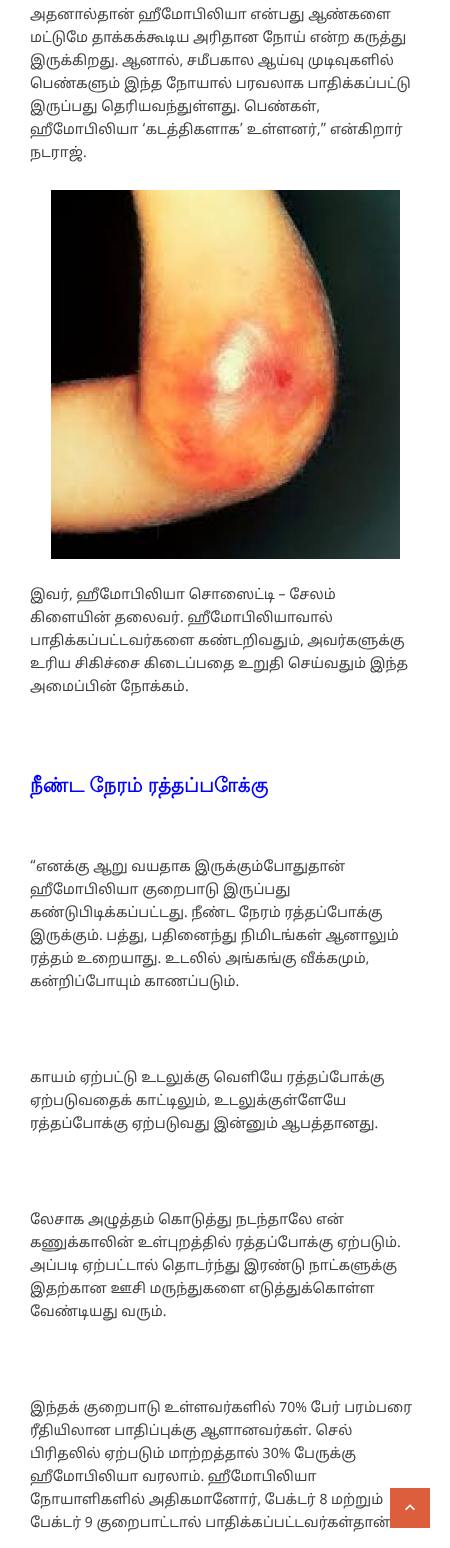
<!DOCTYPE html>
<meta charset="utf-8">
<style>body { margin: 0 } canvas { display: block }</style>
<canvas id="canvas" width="450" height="1548"></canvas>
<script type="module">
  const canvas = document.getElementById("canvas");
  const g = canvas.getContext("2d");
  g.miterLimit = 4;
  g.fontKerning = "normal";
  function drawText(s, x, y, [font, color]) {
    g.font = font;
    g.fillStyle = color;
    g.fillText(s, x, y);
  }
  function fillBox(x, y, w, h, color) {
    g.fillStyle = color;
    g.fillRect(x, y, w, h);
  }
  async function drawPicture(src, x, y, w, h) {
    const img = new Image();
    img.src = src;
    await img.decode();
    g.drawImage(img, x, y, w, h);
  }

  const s1 = ["14px Noto Sans Tamil", "#404040"];
  const s2 = ["bold 20px Lohit Tamil", "#0000FF"];

  fillBox(0, 0, 450, 1548, "#FFFFFF");
  drawText("அதனால்தான் ஹீமோபிலியா என்பது ஆண்களை", 30, 19, s1);
  drawText("மட்டுமே தாக்கக்கூடிய அரிதான நோய் என்ற கருத்து", 30, 42, s1);
  drawText("இருக்கிறது. ஆனால், சமீபகால ஆய்வு முடிவுகளில்", 30, 65, s1);
  drawText("பெண்களும் இந்த நோயால் பரவலாக பாதிக்கப்பட்டு", 30, 88, s1);
  drawText("இருப்பது தெரியவந்துள்ளது. பெண்கள்,", 30, 111, s1);
  drawText("ஹீமோபிலியா ‘கடத்திகளாக’ உள்ளனர்,” என்கிறார்", 30, 134, s1);
  drawText("நடராஜ்.", 30, 157, s1);
  await drawPicture("pic1.png", 51, 190, 349, 369);
  drawText("இவர், ஹீமோபிலியா சொஸைட்டி – சேலம்", 30, 599, s1);
  drawText("கிளையின் தலைவர். ஹீமோபிலியாவால்", 30, 622, s1);
  drawText("பாதிக்கப்பட்டவர்களை கண்டறிவதும், அவர்களுக்கு", 30, 645, s1);
  drawText("உரிய சிகிச்சை கிடைப்பதை உறுதி செய்வதும் இந்த", 30, 668, s1);
  drawText("அமைப்பின் நோக்கம்.", 30, 691, s1);
  g.wordSpacing = "-1px";
  drawText("நீண்ட நேரம் ரத்தப்போக்கு", 30, 792, s2);
  g.wordSpacing = "0px";
  drawText("“எனக்கு ஆறு வயதாக இருக்கும்போதுதான்", 30, 871, s1);
  drawText("ஹீமோபிலியா குறைபாடு இருப்பது", 30, 894, s1);
  drawText("கண்டுபிடிக்கப்பட்டது. நீண்ட நேரம் ரத்தப்போக்கு", 30, 917, s1);
  drawText("இருக்கும். பத்து, பதினைந்து நிமிடங்கள் ஆனாலும்", 30, 940, s1);
  drawText("ரத்தம் உறையாது. உடலில் அங்கங்கு வீக்கமும்,", 30, 963, s1);
  drawText("கன்றிப்போயும் காணப்படும்.", 30, 986, s1);
  drawText("காயம் ஏற்பட்டு உடலுக்கு வெளியே ரத்தப்போக்கு", 30, 1082, s1);
  drawText("ஏற்படுவதைக் காட்டிலும், உடலுக்குள்ளேயே", 30, 1105, s1);
  drawText("ரத்தப்போக்கு ஏற்படுவது இன்னும் ஆபத்தானது.", 30, 1128, s1);
  drawText("லேசாக அழுத்தம் கொடுத்து நடந்தாலே என்", 30, 1224, s1);
  drawText("கணுக்காலின் உள்புறத்தில் ரத்தப்போக்கு ஏற்படும்.", 30, 1247, s1);
  drawText("அப்படி ஏற்பட்டால் தொடர்ந்து இரண்டு நாட்களுக்கு", 30, 1270, s1);
  drawText("இதற்கான ஊசி மருந்துகளை எடுத்துக்கொள்ள", 30, 1293, s1);
  drawText("வேண்டியது வரும்.", 30, 1316, s1);
  drawText("இந்தக் குறைபாடு உள்ளவர்களில் 70% பேர் பரம்பரை", 30, 1412, s1);
  drawText("ரீதியிலான பாதிப்புக்கு ஆளானவர்கள். செல்", 30, 1435, s1);
  drawText("பிரிதலில் ஏற்படும் மாற்றத்தால் 30% பேருக்கு", 30, 1458, s1);
  drawText("ஹீமோபிலியா வரலாம். ஹீமோபிலியா", 30, 1481, s1);
  drawText("நோயாளிகளில் அதிகமானோர், பேக்டர் 8 மற்றும்", 30, 1504, s1);
  drawText("பேக்டர் 9 குறைபாட்டால் பாதிக்கப்பட்டவர்கள்தான்", 30, 1527, s1);
  fillBox(390, 1488, 40, 40, "#DC5E3C");
  await drawPicture("pic2.png", 405, 1504, 10, 7);
</script>
